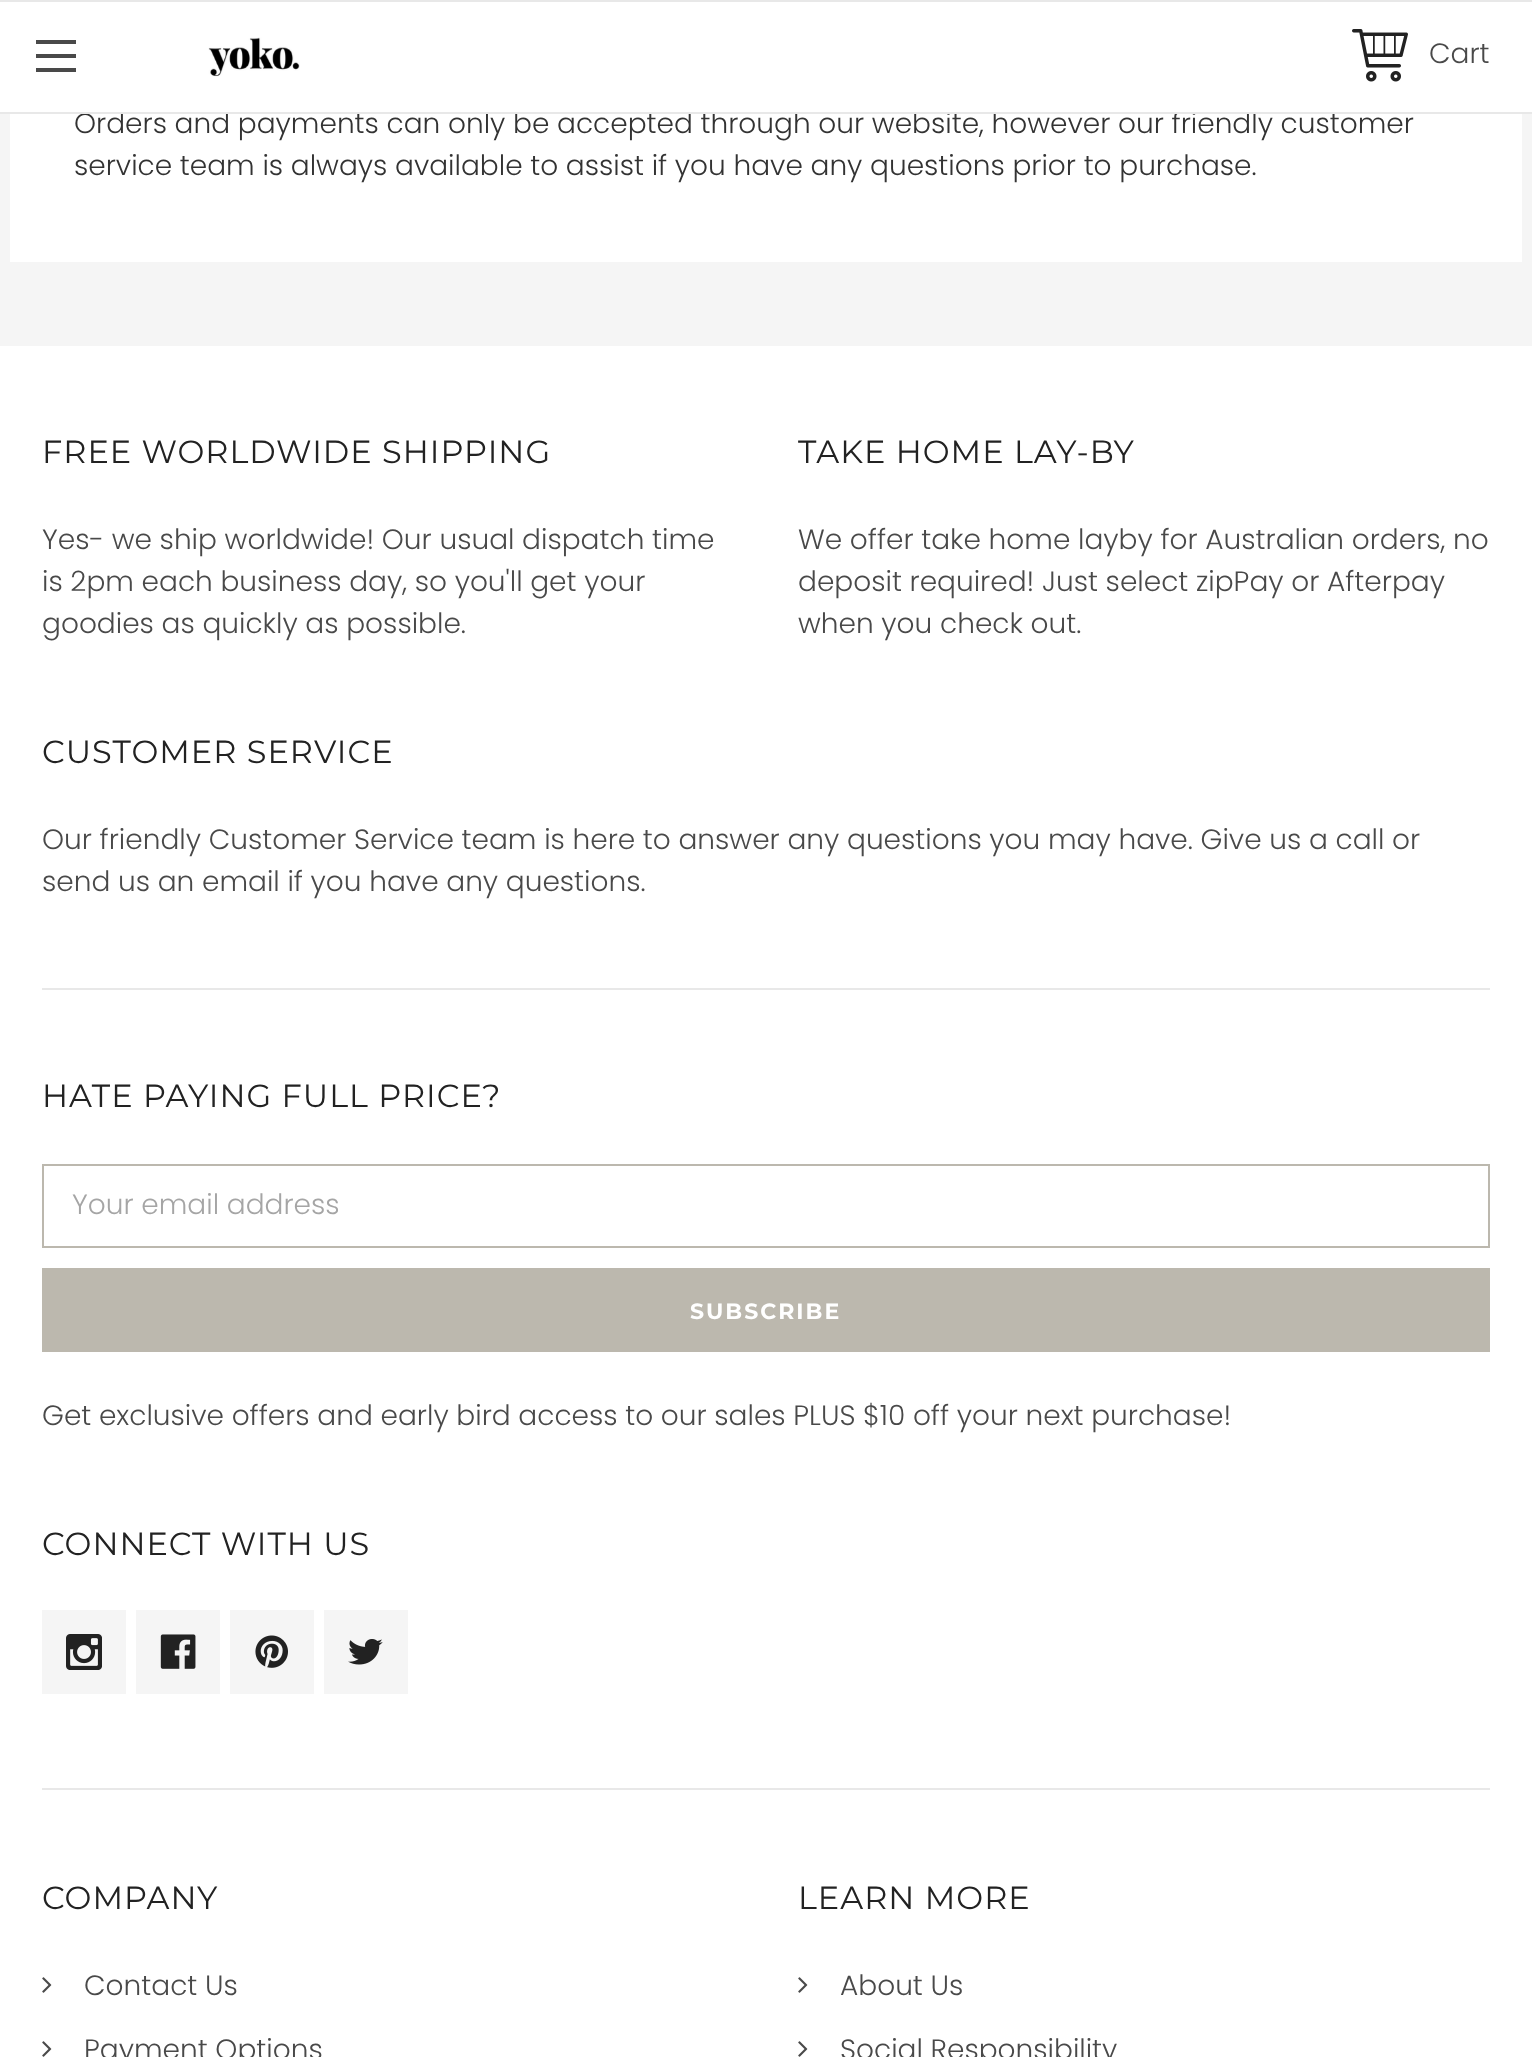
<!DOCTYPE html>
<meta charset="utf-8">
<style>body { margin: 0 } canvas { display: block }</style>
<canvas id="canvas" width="1532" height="2057"></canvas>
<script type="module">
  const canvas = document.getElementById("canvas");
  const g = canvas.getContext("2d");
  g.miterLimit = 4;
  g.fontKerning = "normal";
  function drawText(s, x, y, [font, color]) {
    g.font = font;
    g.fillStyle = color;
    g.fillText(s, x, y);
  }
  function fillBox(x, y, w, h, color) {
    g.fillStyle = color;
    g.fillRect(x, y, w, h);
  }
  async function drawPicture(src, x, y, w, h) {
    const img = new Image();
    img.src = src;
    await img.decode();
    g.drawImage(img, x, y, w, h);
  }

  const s1 = ["300 28px Poppins", "#333333"];
  const s2 = ["300 28px Poppins", "#494949"];
  const s3 = ["32px Montserrat", "#222222"];
  const s4 = ["300 28px Poppins", "#A5A5A5"];
  const s5 = ["bold 22px Montserrat", "#FFFFFF"];

  fillBox(0, 0, 1532, 2057, "#F5F5F5");
  fillBox(10, 114, 1512, 148, "#FFFFFF");
  drawText("Orders and payments can only be accepted through our website, however our friendly customer", 74, 133, s1);
  fillBox(0, 2, 1532, 110, "#FFFFFF");
  fillBox(0, 112, 1532, 2, "#E8E8E8");
  fillBox(0, 0, 1532, 2, "#E8E8E8");
  fillBox(36, 54, 40, 4, "#494949");
  fillBox(36, 40, 40, 4, "#494949");
  fillBox(36, 68, 40, 4, "#494949");
  await drawPicture("pic1.png", 208, 37, 92, 40);
  await drawPicture("pic2.png", 1352, 29, 56, 53);
  drawText("Cart", 1429, 63, s2);
  drawText("service team is always available to assist if you have any questions prior to purchase.", 74, 175, s1);
  fillBox(0, 346, 1532, 1711, "#FFFFFF");
  g.letterSpacing = "1px";
  drawText("FREE WORLDWIDE SHIPPING", 42, 463, s3);
  g.letterSpacing = "0px";
  drawText("Yes- we ship worldwide! Our usual dispatch time", 42, 549, s2);
  drawText("is 2pm each business day, so you'll get your", 42, 591, s2);
  drawText("goodies as quickly as possible.", 42, 633, s2);
  g.letterSpacing = "1px";
  drawText("TAKE HOME LAY-BY", 798, 463, s3);
  g.letterSpacing = "0px";
  drawText("We offer take home layby for Australian orders, no", 798, 549, s2);
  drawText("deposit required! Just select zipPay or Afterpay", 798, 591, s2);
  drawText("when you check out.", 798, 633, s2);
  g.letterSpacing = "1px";
  drawText("CUSTOMER SERVICE", 42, 763, s3);
  g.letterSpacing = "0px";
  drawText("Our friendly Customer Service team is here to answer any questions you may have. Give us a call or", 42, 849, s2);
  drawText("send us an email if you have any questions.", 42, 891, s2);
  fillBox(42, 988, 1448, 2, "#E8E8E8");
  g.letterSpacing = "1px";
  drawText("HATE PAYING FULL PRICE?", 42, 1107, s3);
  g.strokeStyle = "#BCB8AE";
  g.lineWidth = 2;
  g.strokeRect(43, 1165, 1446, 82);
  g.letterSpacing = "0px";
  drawText("Your email address", 72, 1214, s4);
  fillBox(42, 1268, 1448, 84, "#BCB8AE");
  g.letterSpacing = "2px";
  drawText("SUBSCRIBE", 690, 1319, s5);
  g.letterSpacing = "0px";
  drawText("Get exclusive offers and early bird access to our sales PLUS $10 off your next purchase!", 42, 1425, s2);
  g.letterSpacing = "1px";
  drawText("CONNECT WITH US", 42, 1555, s3);
  fillBox(42, 1610, 84, 84, "#F5F5F5");
  await drawPicture("pic3.png", 66, 1634, 36, 36);
  fillBox(136, 1610, 84, 84, "#F5F5F5");
  await drawPicture("pic4.png", 160, 1634, 36, 35);
  fillBox(230, 1610, 84, 84, "#F5F5F5");
  await drawPicture("pic5.png", 255, 1635, 33, 33);
  fillBox(324, 1610, 84, 84, "#F5F5F5");
  await drawPicture("pic6.png", 348, 1639, 35, 26);
  fillBox(42, 1788, 1448, 2, "#E8E8E8");
  drawText("COMPANY", 42, 1909, s3);
  await drawPicture("pic7.png", 42, 1977, 10, 16);
  g.letterSpacing = "0px";
  drawText("Contact Us", 84, 1995, s2);
  await drawPicture("pic7.png", 42, 2041, 10, 16);
  drawText("Payment Options", 84, 2059, s2);
  g.letterSpacing = "1px";
  drawText("LEARN MORE", 798, 1909, s3);
  await drawPicture("pic7.png", 798, 1977, 10, 16);
  g.letterSpacing = "0px";
  drawText("About Us", 840, 1995, s2);
  await drawPicture("pic7.png", 798, 2041, 10, 16);
  drawText("Social Responsibility", 840, 2059, s2);
</script>
